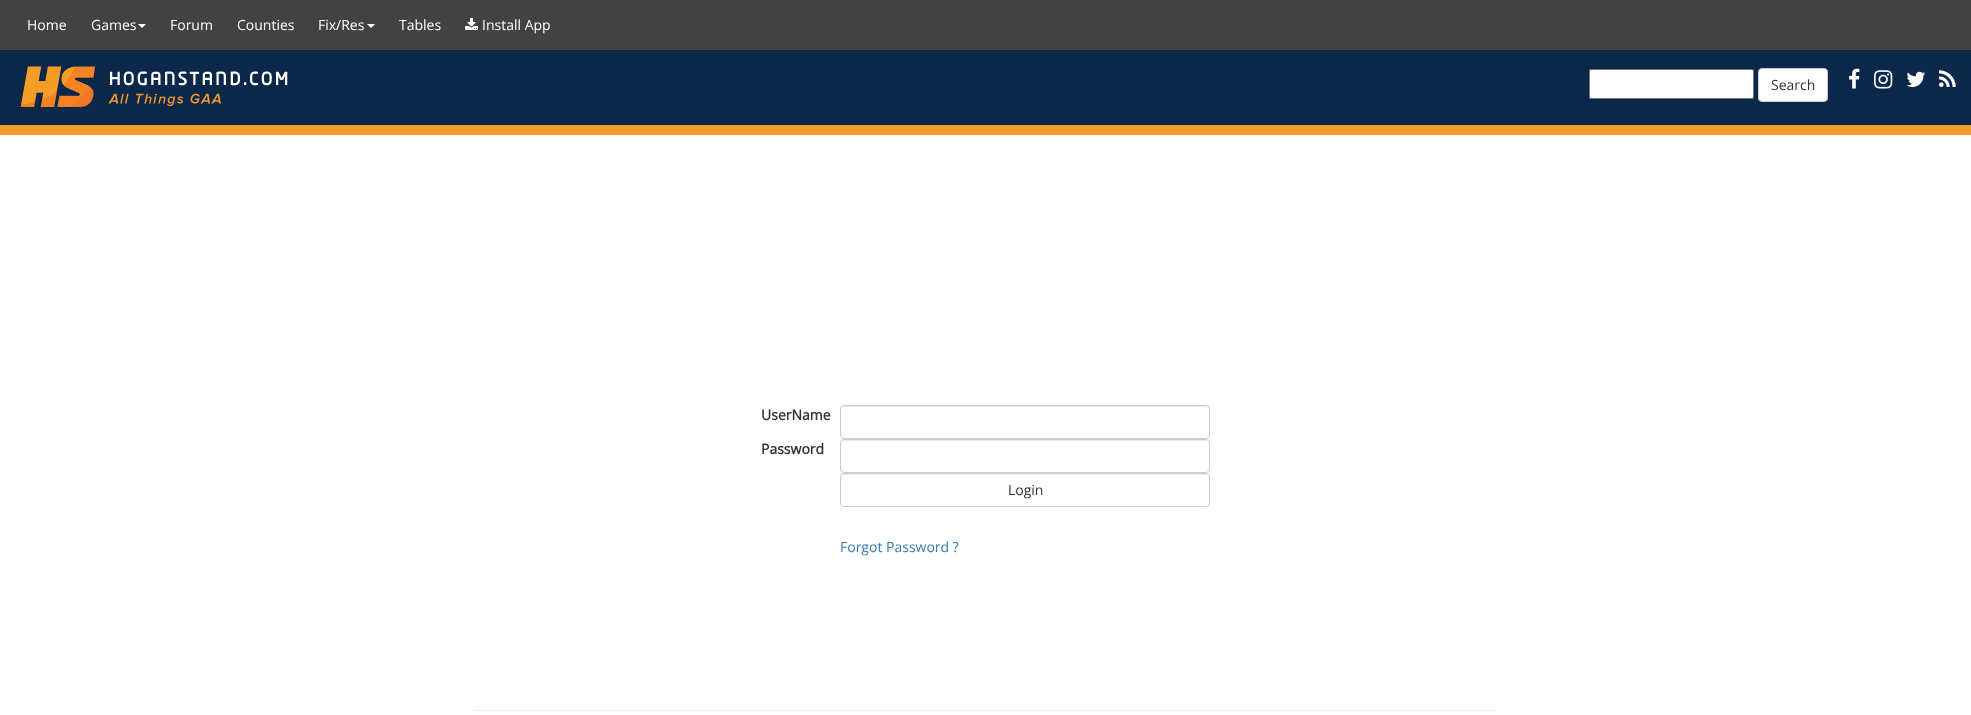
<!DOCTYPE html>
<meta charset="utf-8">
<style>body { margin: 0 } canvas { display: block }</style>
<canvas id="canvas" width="1971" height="715"></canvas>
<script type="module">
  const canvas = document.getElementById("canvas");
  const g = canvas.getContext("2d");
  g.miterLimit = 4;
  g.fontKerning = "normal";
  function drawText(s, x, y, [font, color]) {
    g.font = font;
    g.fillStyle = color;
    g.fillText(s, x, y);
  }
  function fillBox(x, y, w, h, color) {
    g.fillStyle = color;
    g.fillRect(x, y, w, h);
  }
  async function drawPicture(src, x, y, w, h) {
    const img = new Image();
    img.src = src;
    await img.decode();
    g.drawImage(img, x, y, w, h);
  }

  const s1 = ["14px Open Sans", "#FFFFFF"];
  const s2 = ["14px Open Sans", "#333333"];
  const s3 = ["bold 14px Open Sans", "#333333"];
  const s4 = ["14px Open Sans", "#337AB7"];

  fillBox(0, 0, 1971, 715, "#FFFFFF");
  fillBox(0, 0, 1971, 50, "#424242");
  drawText("Home", 27, 30, s1);
  drawText("Games", 91, 30, s1);
  g.beginPath();
  g.moveTo(138, 24);
  g.lineTo(146, 24);
  g.lineTo(142, 28);
  g.closePath();
  g.fill();
  drawText("Forum", 170, 30, s1);
  drawText("Counties", 237, 30, s1);
  drawText("Fix/Res", 318, 30, s1);
  g.beginPath();
  g.moveTo(367, 24);
  g.lineTo(375, 24);
  g.lineTo(371, 28);
  g.closePath();
  g.fill();
  drawText("Tables", 399, 30, s1);
  await drawPicture("pic1.png", 465, 18, 13, 12);
  drawText("Install App", 482, 30, s1);
  fillBox(0, 50, 1971, 75, "#0B284A");
  await drawPicture("pic2.png", 20, 66, 268, 42);
  g.fillStyle = "#FFFFFF";
  g.beginPath();
  g.roundRect(1589.5, 69.5, 164, 29, 1.5);
  g.fill();
  g.strokeStyle = "#767676";
  g.stroke();
  g.beginPath();
  g.roundRect(1758.5, 68.5, 69, 33, 3.5);
  g.fill();
  g.strokeStyle = "#CCCCCC";
  g.stroke();
  drawText("Search", 1771, 90, s2);
  await drawPicture("pic3.png", 1849, 68, 11, 21);
  await drawPicture("pic4.png", 1874, 70, 19, 19);
  await drawPicture("pic5.png", 1906, 71, 20, 16);
  await drawPicture("pic6.png", 1939, 70, 17, 17);
  fillBox(0, 125, 1971, 10, "#F69D27");
  drawText("UserName", 761, 420, s3);
  g.fillStyle = "#ECECEC";
  g.beginPath();
  g.moveTo(844, 407);
  g.lineTo(1206, 407);
  g.bezierCurveTo(1208, 407, 1209, 408, 1209, 410);
  g.bezierCurveTo(1209, 408, 1208, 406, 1206, 406);
  g.lineTo(844, 406);
  g.lineTo(842, 407);
  g.lineTo(841, 410);
  g.bezierCurveTo(841, 408, 842, 407, 844, 407);
  g.closePath();
  g.fill();
  g.beginPath();
  g.roundRect(840.5, 405.5, 369, 33, 3.5);
  g.stroke();
  drawText("Password", 761, 454, s3);
  g.fillStyle = "#ECECEC";
  g.beginPath();
  g.moveTo(844, 441);
  g.lineTo(1206, 441);
  g.bezierCurveTo(1208, 441, 1209, 442, 1209, 444);
  g.bezierCurveTo(1209, 442, 1208, 440, 1206, 440);
  g.lineTo(844, 440);
  g.lineTo(842, 441);
  g.lineTo(841, 444);
  g.bezierCurveTo(841, 442, 842, 441, 844, 441);
  g.closePath();
  g.fill();
  g.beginPath();
  g.roundRect(840.5, 439.5, 369, 33, 3.5);
  g.stroke();
  g.beginPath();
  g.moveTo(844, 475);
  g.lineTo(1206, 475);
  g.bezierCurveTo(1208, 475, 1209, 476, 1209, 478);
  g.bezierCurveTo(1209, 476, 1208, 474, 1206, 474);
  g.lineTo(844, 474);
  g.lineTo(842, 475);
  g.lineTo(841, 478);
  g.bezierCurveTo(841, 476, 842, 475, 844, 475);
  g.closePath();
  g.fill();
  g.beginPath();
  g.roundRect(840.5, 473.5, 369, 33, 3.5);
  g.stroke();
  drawText("Login", 1008, 495, s2);
  drawText("Forgot Password ?", 840, 552, s4);
  fillBox(476, 710, 1020, 1, "#EEEEEE");
</script>
